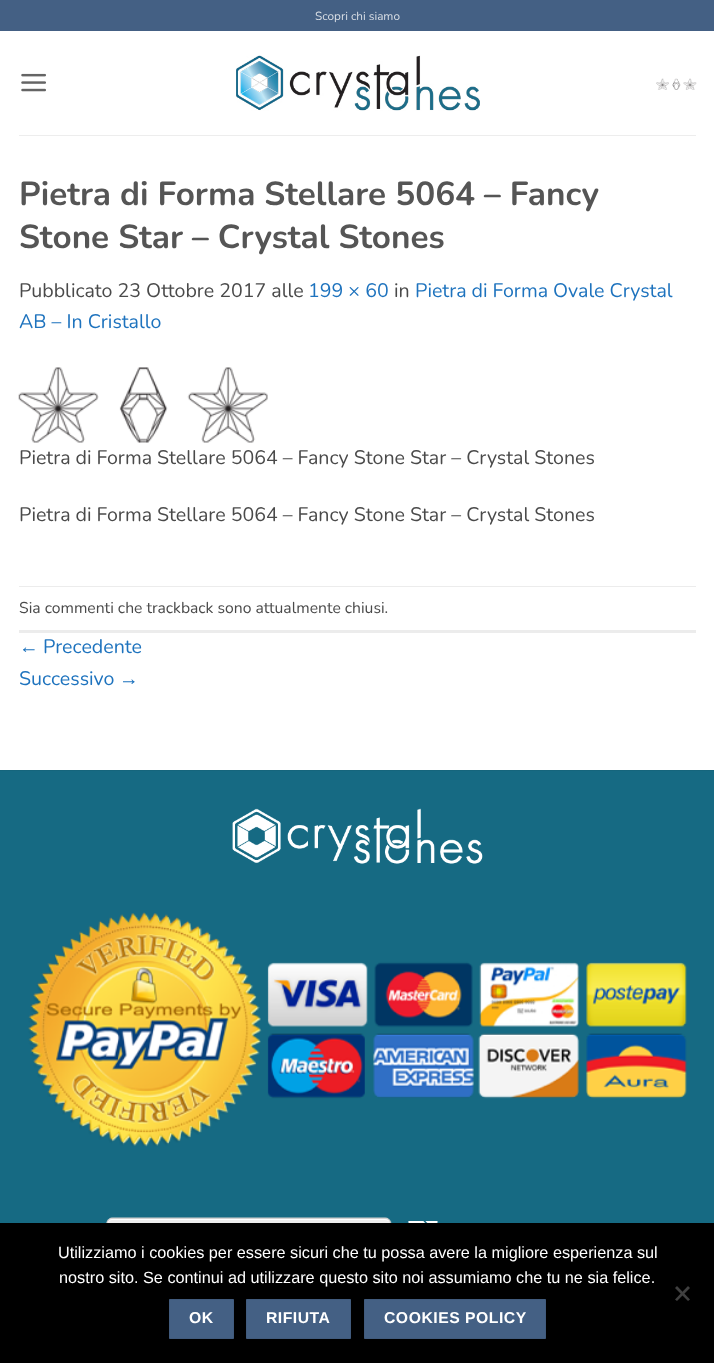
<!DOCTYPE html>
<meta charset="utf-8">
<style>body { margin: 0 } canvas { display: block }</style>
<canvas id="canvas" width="714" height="1363"></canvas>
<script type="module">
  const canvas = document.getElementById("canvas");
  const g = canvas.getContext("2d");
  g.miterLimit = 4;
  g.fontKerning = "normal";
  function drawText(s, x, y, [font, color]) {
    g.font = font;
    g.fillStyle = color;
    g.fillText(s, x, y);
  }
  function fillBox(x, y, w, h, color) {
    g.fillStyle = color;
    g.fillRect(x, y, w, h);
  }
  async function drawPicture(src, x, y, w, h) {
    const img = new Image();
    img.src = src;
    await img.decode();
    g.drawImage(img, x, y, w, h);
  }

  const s1 = ["11.75px Nunito", "#DADFE6"];
  const s2 = ["bold 33.3px Nunito", "#555555"];
  const s3 = ["19.6px Nunito", "#4A4A4A"];
  const s4 = ["19.6px Nunito", "#1E73BE"];
  const s5 = ["15.7px Nunito", "#4A4A4A"];
  const s6 = ["19.6px Liberation Sans", "#1E73BE"];
  const s7 = ["16.25px Liberation Sans", "#FFFFFF"];
  const s8 = ["bold 15.75px Liberation Sans", "#FFFFFF"];

  fillBox(0, 0, 714, 1363, "#FFFFFF");
  fillBox(0, 0, 714, 31, "#446084");
  drawText("Scopri chi siamo", 315, 20, s1);
  await drawPicture("pic1.png", 21, 73, 25, 19);
  await drawPicture("pic2.png", 236, 55, 244, 56);
  await drawPicture("pic3.png", 656, 78, 41, 12);
  fillBox(19, 135, 677, 1, "#EDEDED");
  drawText("Pietra di Forma Stellare 5064 – Fancy", 19, 205, s2);
  drawText("Stone Star – Crystal Stones", 19, 248, s2);
  drawText("Pubblicato 23 Ottobre 2017 alle", 19, 297, s3);
  drawText("199 × 60", 308, 297, s4);
  drawText("in", 394, 297, s3);
  drawText("Pietra di Forma Ovale Crystal", 415, 297, s4);
  drawText("AB – In Cristallo", 19, 328, s4);
  await drawPicture("pic4.png", 18, 367, 250, 76);
  drawText("Pietra di Forma Stellare 5064 – Fancy Stone Star – Crystal Stones", 19, 464, s3);
  drawText("Pietra di Forma Stellare 5064 – Fancy Stone Star – Crystal Stones", 19, 521, s3);
  fillBox(19, 586, 677, 1, "#ECECEC");
  fillBox(19, 630, 677, 3, "#ECECEC");
  drawText("Sia commenti che trackback sono attualmente chiusi.", 19, 613, s5);
  drawText("←", 19, 653, s6);
  drawText("Precedente", 43, 653, s4);
  drawText("Successivo", 19, 685, s4);
  drawText("→", 119, 685, s6);
  fillBox(0, 771, 714, 452, "#166A83");
  fillBox(0, 770, 714, 1, "#15657C");
  await drawPicture("pic5.png", 232, 808, 251, 56);
  await drawPicture("pic6.png", 28, 912, 659, 235);
  await drawPicture("pic7.png", 106, 1217, 286, 6);
  await drawPicture("pic8.png", 408, 1221, 30, 2);
  fillBox(0, 1223, 714, 140, "#000000");
  drawText("Utilizziamo i cookies per essere sicuri che tu possa avere la migliore esperienza sul", 58, 1258, s7);
  drawText("nostro sito. Se continui ad utilizzare questo sito noi assumiamo che tu ne sia felice.", 59, 1283, s7);
  g.fillStyle = "#404040";
  g.beginPath();
  g.moveTo(688, 1286);
  g.lineTo(690, 1288);
  g.lineTo(677, 1301);
  g.lineTo(675, 1299.5);
  g.closePath();
  g.fill();
  g.beginPath();
  g.moveTo(675, 1288);
  g.lineTo(677, 1286);
  g.lineTo(690, 1299.5);
  g.lineTo(688, 1301);
  g.closePath();
  g.fill();
  g.fillStyle = "#446084";
  g.beginPath();
  g.rect(169.5, 1299.5, 64, 39);
  g.fill();
  g.strokeStyle = "#415B7D";
  g.stroke();
  g.letterSpacing = "0.5px";
  drawText("OK", 189, 1323, s8);
  g.fillStyle = "#446084";
  g.beginPath();
  g.rect(246.5, 1299.5, 104, 39);
  g.fill();
  g.stroke();
  drawText("RIFIUTA", 266, 1323, s8);
  g.fillStyle = "#446084";
  g.beginPath();
  g.rect(364.5, 1299.5, 181, 39);
  g.fill();
  g.stroke();
  drawText("COOKIES POLICY", 384, 1323, s8);
</script>
